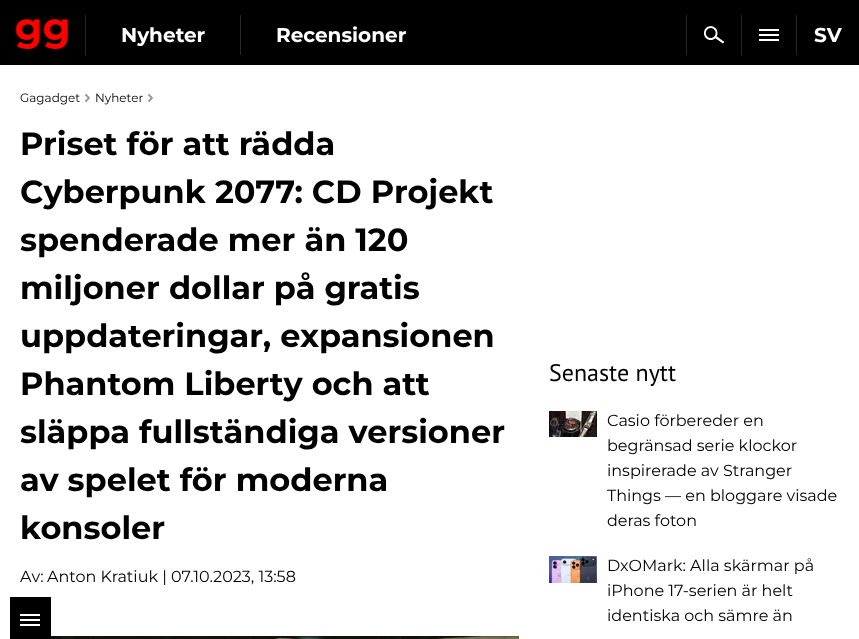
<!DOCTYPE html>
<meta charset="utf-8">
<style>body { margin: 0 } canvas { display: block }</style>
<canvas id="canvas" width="859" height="639"></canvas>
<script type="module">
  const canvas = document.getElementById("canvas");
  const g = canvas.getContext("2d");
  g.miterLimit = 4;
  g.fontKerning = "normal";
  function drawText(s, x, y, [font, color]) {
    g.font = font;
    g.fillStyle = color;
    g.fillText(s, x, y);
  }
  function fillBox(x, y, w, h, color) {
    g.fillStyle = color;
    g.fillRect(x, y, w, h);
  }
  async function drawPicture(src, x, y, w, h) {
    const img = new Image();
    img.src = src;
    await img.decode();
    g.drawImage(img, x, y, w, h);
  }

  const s1 = ["100 20px 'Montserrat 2'", "#FFFFFF"];
  const s2 = ["100 12px Montserrat", "#000000"];
  const s3 = ["100 32px 'Montserrat 2'", "#000000"];
  const s4 = ["100 16px Montserrat", "#000000"];
  const s5 = ["24px PT Sans", "#000000"];

  fillBox(0, 0, 859, 639, "#FFFFFF");
  fillBox(0, 0, 859, 65, "#000000");
  await drawPicture("pic1.png", 15, 19, 54, 30);
  fillBox(85, 15, 1, 40, "#282828");
  drawText("Nyheter", 121, 42, s1);
  fillBox(240, 15, 1, 40, "#282828");
  drawText("Recensioner", 276, 42, s1);
  fillBox(686, 15, 1, 40, "#282828");
  await drawPicture("pic2.png", 704, 26, 20, 18);
  fillBox(741, 15, 1, 40, "#282828");
  fillBox(759, 29, 20, 2, "#FFFFFF");
  fillBox(759, 34, 20, 2, "#FFFFFF");
  fillBox(759, 39, 20, 2, "#FFFFFF");
  fillBox(796, 15, 1, 40, "#282828");
  drawText("SV", 814, 42, s1);
  drawText("Gagadget", 20, 102, s2);
  await drawPicture("pic3.png", 85, 94, 5, 8);
  drawText("Nyheter", 95, 102, s2);
  await drawPicture("pic3.png", 148, 94, 5, 8);
  drawText("Priset för att rädda", 20, 155, s3);
  drawText("Cyberpunk 2077: CD Projekt", 20, 203, s3);
  drawText("spenderade mer än 120", 20, 251, s3);
  drawText("miljoner dollar på gratis", 20, 299, s3);
  drawText("uppdateringar, expansionen", 20, 347, s3);
  drawText("Phantom Liberty och att", 20, 395, s3);
  drawText("släppa fullständiga versioner", 20, 443, s3);
  drawText("av spelet för moderna", 20, 491, s3);
  drawText("konsoler", 20, 539, s3);
  drawText("Av:", 20, 582, s4);
  drawText("Anton Kratiuk | 07.10.2023, 13:58", 47, 582, s4);
  await drawPicture("pic4.png", 51, 636, 468, 3);
  drawText("Senaste nytt", 549, 381, s5);
  await drawPicture("pic5.png", 549, 411, 48, 26);
  drawText("Casio förbereder en", 607, 426, s4);
  drawText("begränsad serie klockor", 607, 451, s4);
  drawText("inspirerade av Stranger", 607, 476, s4);
  drawText("Things — en bloggare visade", 607, 501, s4);
  drawText("deras foton", 607, 526, s4);
  await drawPicture("pic6.png", 549, 556, 48, 27);
  drawText("DxOMark: Alla skärmar på", 607, 571, s4);
  drawText("iPhone 17-serien är helt", 607, 596, s4);
  drawText("identiska och sämre än", 607, 621, s4);
  fillBox(10, 597, 41, 42, "#000000");
  fillBox(20, 614, 20, 2, "#FFFFFF");
  fillBox(20, 619, 20, 2, "#FFFFFF");
  fillBox(20, 624, 20, 2, "#FFFFFF");
</script>
